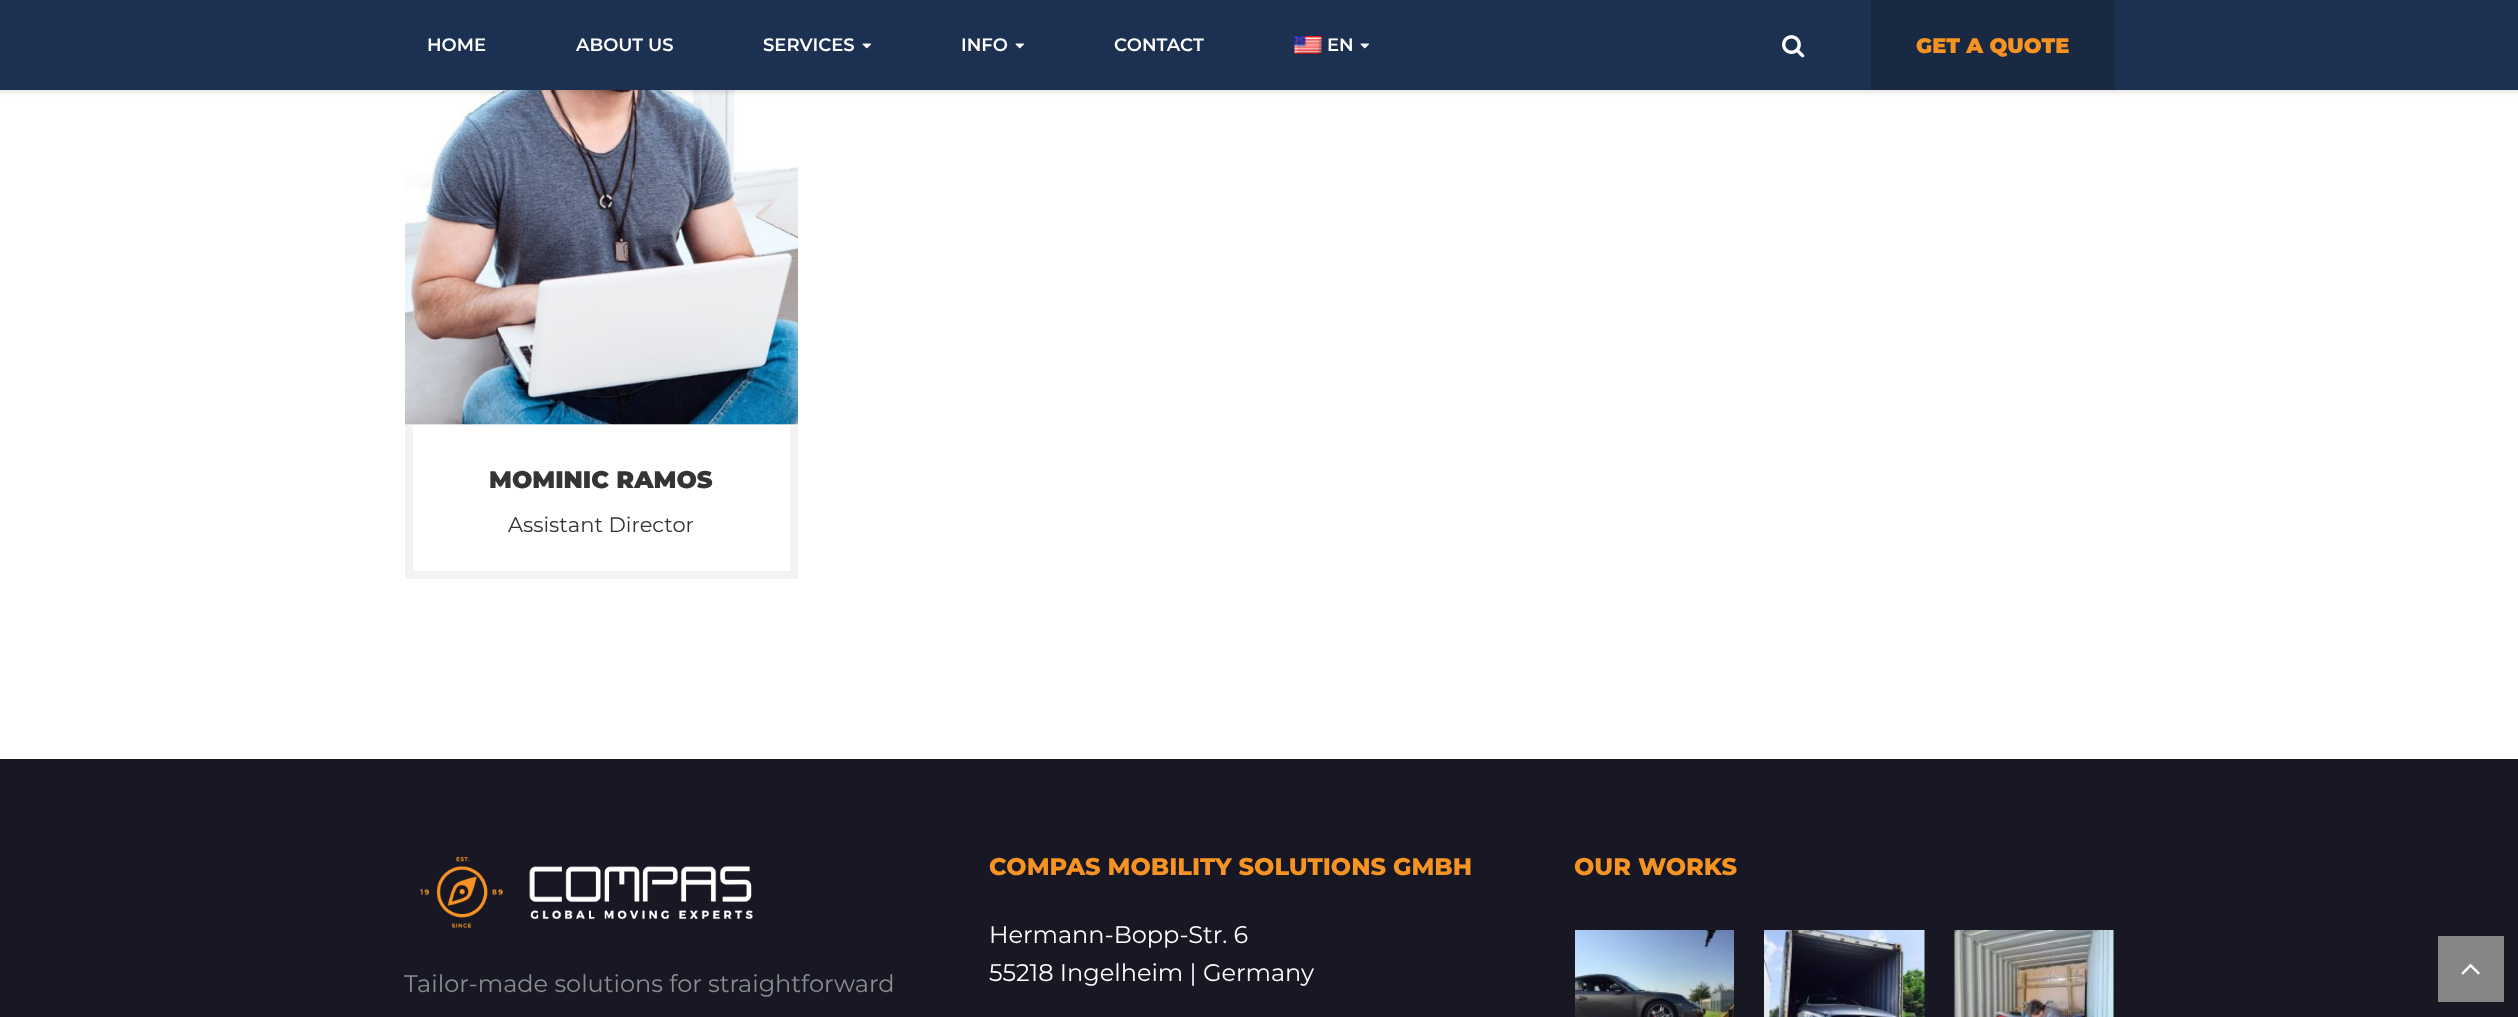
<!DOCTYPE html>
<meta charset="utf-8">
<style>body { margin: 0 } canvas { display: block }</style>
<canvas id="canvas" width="2518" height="1017"></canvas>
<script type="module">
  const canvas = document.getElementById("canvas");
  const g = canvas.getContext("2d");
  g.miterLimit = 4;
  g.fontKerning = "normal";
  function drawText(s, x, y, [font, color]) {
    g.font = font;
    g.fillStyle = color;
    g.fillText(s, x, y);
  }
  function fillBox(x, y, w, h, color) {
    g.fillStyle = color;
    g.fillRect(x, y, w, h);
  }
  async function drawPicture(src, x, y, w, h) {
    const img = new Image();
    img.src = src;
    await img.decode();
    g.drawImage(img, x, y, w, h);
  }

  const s1 = ["100 18px 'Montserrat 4'", "#FFFFFF"];
  const s2 = ["100 21px Montserrat", "#F69323"];
  const s3 = ["100 24px Montserrat", "#343434"];
  const s4 = ["100 21px 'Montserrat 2'", "#343434"];
  const s5 = ["100 24px 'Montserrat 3'", "#F69323"];
  const s6 = ["100 24px 'Montserrat 2'", "#FFFFFF"];
  const s7 = ["100 24px 'Montserrat 2'", "#8B8C92"];

  fillBox(0, 0, 2518, 1017, "#FFFFFF");
  g.strokeStyle = "#F3F3F3";
  g.lineWidth = 8;
  g.strokeRect(409, 421, 385, 154);
  await drawPicture("pic4.png", 405, 90, 393, 335);
  g.fillStyle = "rgba(0, 0, 0, 0.1)";
  g.filter = "blur(2px)";
  g.beginPath();
  g.rect(-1, -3, 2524, 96);
  g.fill();
  g.filter = "none";
  fillBox(0, 0, 2518, 90, "#1C3051");
  drawText("HOME", 427, 51, s1);
  drawText("ABOUT US", 576, 51, s1);
  drawText("SERVICES", 763, 51, s1);
  await drawPicture("pic1.png", 862, 43, 9, 6);
  drawText("INFO", 961, 51, s1);
  await drawPicture("pic1.png", 1015, 43, 9, 6);
  drawText("CONTACT", 1114, 51, s1);
  await drawPicture("pic2.png", 1294, 36, 28, 18);
  drawText("EN", 1327, 51, s1);
  await drawPicture("pic1.png", 1360, 43, 9, 6);
  await drawPicture("pic3.png", 1782, 35, 23, 23);
  fillBox(1871, 0, 244, 90, "#192942");
  drawText("GET A QUOTE", 1916, 53, s2);
  drawText("MOMINIC RAMOS", 489, 488, s3);
  drawText("Assistant Director", 508, 532, s4);
  fillBox(0, 759, 2518, 258, "#171824");
  drawText("COMPAS MOBILITY SOLUTIONS GMBH", 989, 875, s5);
  drawText("Hermann-Bopp-Str. 6", 989, 943, s6);
  drawText("55218 Ingelheim | Germany", 989, 981, s6);
  drawText("OUR WORKS", 1574, 875, s5);
  await drawPicture("pic5.png", 1575, 930, 159, 87);
  await drawPicture("pic6.png", 1764, 930, 161, 87);
  await drawPicture("pic7.png", 1954, 930, 160, 87);
  await drawPicture("pic8.png", 420, 857, 333, 71);
  drawText("Tailor-made solutions for straightforward", 404, 992, s7);
  fillBox(2438, 936, 66, 66, "#868686");
  await drawPicture("pic9.png", 2461, 963, 19, 12);
</script>
